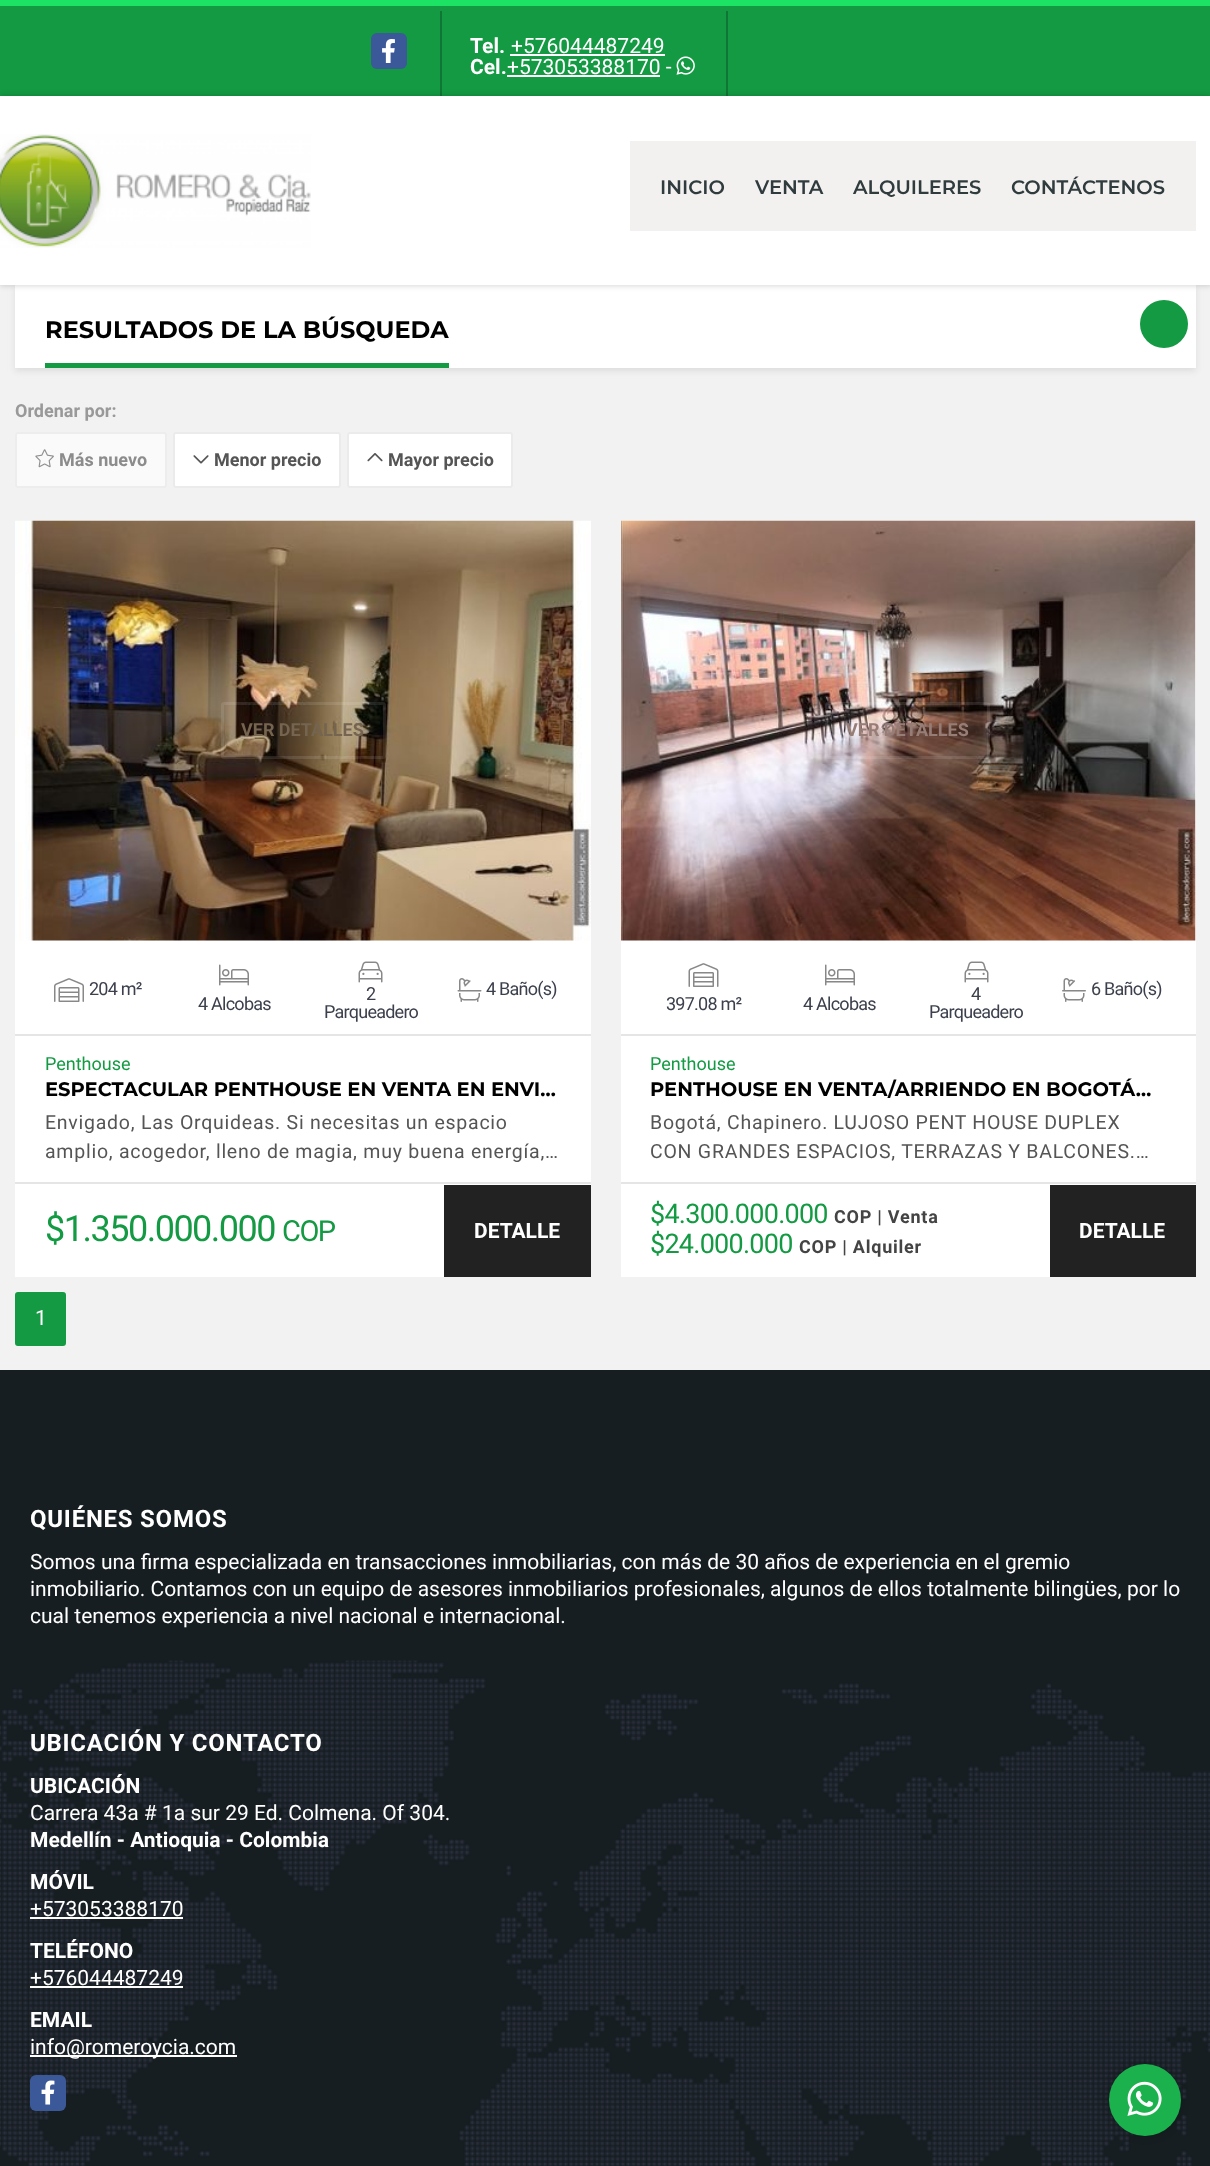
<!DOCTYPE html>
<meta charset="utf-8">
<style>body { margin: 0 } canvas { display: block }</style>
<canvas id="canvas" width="1210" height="2166"></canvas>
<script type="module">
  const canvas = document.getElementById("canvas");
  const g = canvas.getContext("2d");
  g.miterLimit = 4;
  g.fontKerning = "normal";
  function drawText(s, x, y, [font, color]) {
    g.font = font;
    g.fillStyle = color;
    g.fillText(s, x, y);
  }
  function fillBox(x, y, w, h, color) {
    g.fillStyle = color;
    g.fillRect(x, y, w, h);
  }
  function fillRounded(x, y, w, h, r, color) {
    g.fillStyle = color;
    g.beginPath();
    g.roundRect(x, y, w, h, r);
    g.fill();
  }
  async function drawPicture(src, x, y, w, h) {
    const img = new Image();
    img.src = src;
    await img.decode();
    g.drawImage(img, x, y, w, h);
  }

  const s1 = ["bold 21px Roboto", "#FFFFFF"];
  const s2 = ["21px Roboto", "#FFFFFF"];
  const s3 = ["600 19.5px Montserrat", "#303B3D"];
  const s4 = ["bold 24px Montserrat", "#000000"];
  const s5 = ["bold 18px Roboto", "#999999"];
  const s6 = ["bold 18px Roboto", "#8C8C8C"];
  const s7 = ["bold 18px Roboto", "#555555"];
  const s8 = ["bold 18px Roboto", "#746450"];
  const s9 = ["18px Roboto", "#3C404C"];
  const s10 = ["18px Roboto", "#139A43"];
  const s11 = ["bold 19.5px Montserrat", "#000000"];
  const s12 = ["19.5px Roboto", "#555555"];
  const s13 = ["36px Roboto", "#139A43"];
  const s14 = ["29px Roboto", "#139A43"];
  const s15 = ["bold 18px Roboto", "#967E77"];
  const s16 = ["27px Roboto", "#139A43"];
  const s17 = ["bold 18px Roboto", "#444444"];
  const s18 = ["bold 24px Roboto", "#FFFFFF"];

  fillBox(0, 0, 1210, 2166, "#F2F2F2");
  fillBox(0, 6, 1210, 90, "#139A43");
  fillBox(0, 0, 1210, 6, "#1CE363");
  fillRounded(371, 33, 36, 36, 6, "#3B5998");
  await drawPicture("pic1.png", 382, 39, 13, 24);
  fillBox(726, 11, 2, 90, "#0F7633");
  fillBox(440, 11, 2, 90, "#0F7633");
  drawText("Tel.", 470, 53, s1);
  drawText("+576044487249", 511, 53, s2);
  fillBox(510, 54, 155, 2, "#FFFFFF");
  drawText("Cel.", 470, 74, s1);
  drawText("+573053388170 -", 507, 74, s2);
  fillBox(507, 75, 153, 2, "#FFFFFF");
  await drawPicture("pic2.png", 676, 56, 19, 19);
  g.fillStyle = "rgba(199, 199, 199, 0.5)";
  g.filter = "blur(3px)";
  g.beginPath();
  g.rect(15, 288, 1181, 83);
  g.fill();
  g.filter = "none";
  fillBox(15, 285, 1181, 83, "#FFFFFF");
  g.fillStyle = "rgba(0, 0, 0, 0.2)";
  g.filter = "blur(3px)";
  g.beginPath();
  g.rect(0, 96, 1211, 189);
  g.fill();
  g.filter = "none";
  fillBox(0, 96, 1210, 189, "#FFFFFF");
  await drawPicture("pic3.png", 0, 134, 311, 114);
  fillBox(630, 141, 566, 90, "#F2F1F0");
  drawText("INICIO", 660, 194, s3);
  drawText("VENTA", 755, 194, s3);
  drawText("ALQUILERES", 853, 194, s3);
  drawText("CONTÁCTENOS", 1011, 194, s3);
  g.fillStyle = "#139A43";
  g.beginPath();
  g.arc(1164, 324, 24, 0, Math.PI * 2);
  g.fill();
  fillBox(45, 363, 404, 5, "#139A43");
  drawText("RESULTADOS DE LA BÚSQUEDA", 45, 338, s4);
  drawText("Ordenar por:", 15, 417, s5);
  g.fillStyle = "#FAFAFA";
  g.beginPath();
  g.roundRect(16, 433, 150, 54, 2);
  g.fill();
  g.strokeStyle = "#EDEDED";
  g.lineWidth = 2;
  g.stroke();
  await drawPicture("pic4.png", 35, 449, 19, 19);
  drawText("Más nuevo", 59, 466, s6);
  g.fillStyle = "#FFFFFF";
  g.beginPath();
  g.roundRect(174, 433, 166, 54, 2);
  g.fill();
  g.strokeStyle = "#EBEBEB";
  g.stroke();
  await drawPicture("pic5.png", 193, 455, 16, 9);
  drawText("Menor precio", 214, 466, s7);
  g.fillStyle = "#FFFFFF";
  g.beginPath();
  g.roundRect(348, 433, 164, 54, 2);
  g.fill();
  g.stroke();
  await drawPicture("pic6.png", 367, 453, 16, 9);
  drawText("Mayor precio", 388, 466, s7);
  fillBox(15, 940, 576, 337, "#FFFFFF");
  await drawPicture("pic7.png", 15, 520, 576, 421);
  g.beginPath();
  g.roundRect(222.5, 703.5, 162, 54, 1.5);
  g.strokeStyle = "rgba(255, 255, 255, 0.1)";
  g.lineWidth = 3;
  g.stroke();
  drawText("VER DETALLES", 241, 736, s8);
  await drawPicture("pic8.png", 54, 978, 30, 24);
  g.letterSpacing = "-0.75px";
  drawText("204 m²", 89, 995, s9);
  await drawPicture("pic9.png", 219, 964, 30, 22);
  drawText("4 Alcobas", 198, 1010, s9);
  await drawPicture("pic10.png", 358, 961, 25, 22);
  drawText("2", 366, 1000, s9);
  drawText("Parqueadero", 324, 1018, s9);
  await drawPicture("pic11.png", 457, 978, 25, 24);
  drawText("4 Baño(s)", 486, 995, s9);
  fillBox(15, 1034, 576, 2, "#E5E5E5");
  fillBox(15, 1182, 576, 2, "#E5E5E5");
  g.letterSpacing = "0px";
  drawText("Penthouse", 45, 1070, s10);
  drawText("ESPECTACULAR PENTHOUSE EN VENTA EN ENVI…", 45, 1096, s11);
  g.letterSpacing = "0.75px";
  drawText("Envigado, Las Orquideas. Si necesitas un espacio", 45, 1129, s12);
  drawText("amplio, acogedor, lleno de magia, muy buena energía,…", 45, 1158, s12);
  g.letterSpacing = "-1.5px";
  drawText("$1.350.000.000", 45, 1241, s13);
  drawText("COP", 282, 1241, s14);
  fillBox(444, 1185, 147, 92, "#222222");
  g.letterSpacing = "0px";
  drawText("DETALLE", 474, 1238, s1);
  fillBox(621, 521, 575, 756, "#FFFFFF");
  await drawPicture("pic12.png", 621, 520, 575, 421);
  g.beginPath();
  g.roundRect(826.5, 703.5, 162, 54, 1.5);
  g.stroke();
  drawText("VER DETALLES", 846, 736, s15);
  await drawPicture("pic13.png", 688, 963, 31, 24);
  g.letterSpacing = "-0.75px";
  drawText("397.08 m²", 666, 1010, s9);
  await drawPicture("pic9.png", 825, 964, 30, 22);
  drawText("4 Alcobas", 803, 1010, s9);
  await drawPicture("pic10.png", 964, 961, 25, 22);
  drawText("4", 971, 1000, s9);
  drawText("Parqueadero", 929, 1018, s9);
  await drawPicture("pic14.png", 1062, 978, 24, 24);
  drawText("6 Baño(s)", 1091, 995, s9);
  fillBox(621, 1034, 575, 2, "#E5E5E5");
  fillBox(621, 1182, 575, 2, "#E5E5E5");
  g.letterSpacing = "0px";
  drawText("Penthouse", 650, 1070, s10);
  drawText("PENTHOUSE EN VENTA/ARRIENDO EN BOGOTÁ…", 650, 1096, s11);
  g.letterSpacing = "0.75px";
  drawText("Bogotá, Chapinero. LUJOSO PENT HOUSE DUPLEX", 650, 1129, s12);
  drawText("CON GRANDES ESPACIOS, TERRAZAS Y BALCONES.…", 650, 1158, s12);
  g.letterSpacing = "-0.75px";
  drawText("$4.300.000.000", 650, 1223, s16);
  g.letterSpacing = "0.75px";
  drawText("COP | Venta", 834, 1223, s17);
  g.letterSpacing = "-0.75px";
  drawText("$24.000.000", 650, 1253, s16);
  g.letterSpacing = "0.75px";
  drawText("COP | Alquiler", 799, 1253, s17);
  fillBox(1050, 1185, 146, 92, "#222222");
  g.letterSpacing = "0px";
  drawText("DETALLE", 1079, 1238, s1);
  g.fillStyle = "#139A43";
  g.beginPath();
  g.roundRect(16, 1293, 49, 52, 2);
  g.fill();
  g.strokeStyle = "#139A43";
  g.lineWidth = 2;
  g.stroke();
  drawText("1", 35, 1325, s2);
  fillBox(0, 1370, 1210, 796, "#161E22");
  await drawPicture("pic15.png", 0, 1660, 1210, 506);
  g.letterSpacing = "0.75px";
  drawText("QUIÉNES SOMOS", 30, 1527, s18);
  g.letterSpacing = "0px";
  drawText("Somos una firma especializada en transacciones inmobiliarias, con más de 30 años de experiencia en el gremio", 30, 1569, s2);
  drawText("inmobiliario. Contamos con un equipo de asesores inmobiliarios profesionales, algunos de ellos totalmente bilingües, por lo", 30, 1596, s2);
  drawText("cual tenemos experiencia a nivel nacional e internacional.", 30, 1623, s2);
  g.letterSpacing = "0.75px";
  drawText("UBICACIÓN Y CONTACTO", 30, 1751, s18);
  g.letterSpacing = "0px";
  drawText("UBICACIÓN", 30, 1793, s1);
  drawText("Carrera 43a # 1a sur 29 Ed. Colmena. Of 304.", 30, 1820, s2);
  drawText("Medellín - Antioquia - Colombia", 30, 1847, s1);
  drawText("MÓVIL", 30, 1889, s1);
  drawText("+573053388170", 30, 1916, s2);
  fillBox(30, 1917, 153, 2, "#FFFFFF");
  drawText("TELÉFONO", 30, 1958, s1);
  drawText("+576044487249", 30, 1985, s2);
  fillBox(30, 1986, 153, 2, "#FFFFFF");
  drawText("EMAIL", 30, 2027, s1);
  fillBox(30, 2055, 207, 2, "#FFFFFF");
  drawText("info@romeroycia.com", 30, 2054, s2);
  fillRounded(30, 2075, 36, 36, 6, "#3B5998");
  await drawPicture("pic16.png", 41, 2080, 14, 25);
  g.fillStyle = "rgba(0, 0, 0, 0.2)";
  g.filter = "blur(4.5px)";
  g.beginPath();
  g.roundRect(1109, 2064, 72, 72, 36);
  g.fill();
  g.filter = "none";
  g.fillStyle = "#1BB24E";
  g.beginPath();
  g.arc(1145, 2100, 36, 0, Math.PI * 2);
  g.fill();
  await drawPicture("pic17.png", 1127, 2081, 35, 35);
</script>
